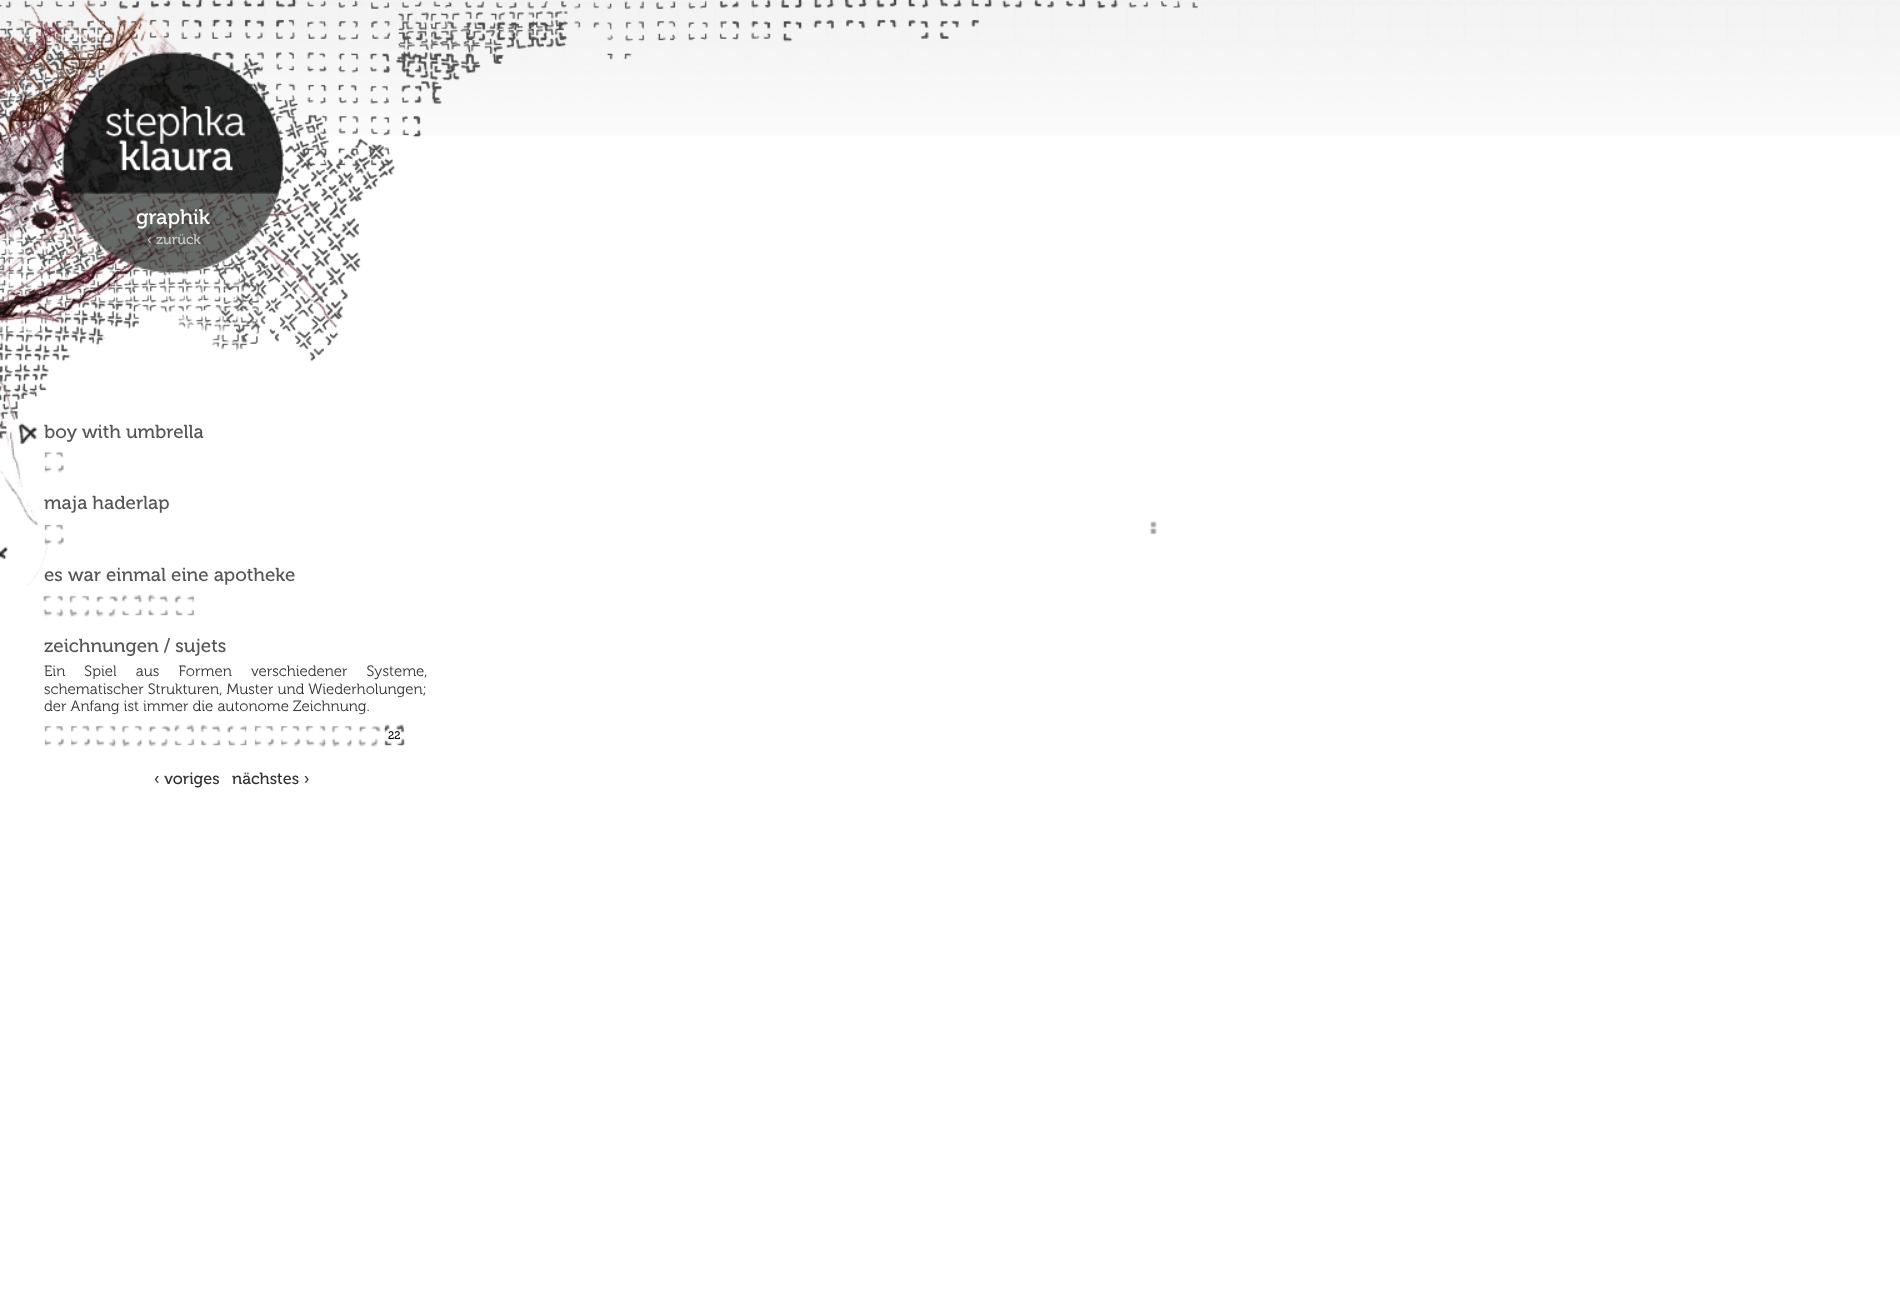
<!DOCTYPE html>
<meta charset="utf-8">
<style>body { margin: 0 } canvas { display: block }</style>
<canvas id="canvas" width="1900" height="1297"></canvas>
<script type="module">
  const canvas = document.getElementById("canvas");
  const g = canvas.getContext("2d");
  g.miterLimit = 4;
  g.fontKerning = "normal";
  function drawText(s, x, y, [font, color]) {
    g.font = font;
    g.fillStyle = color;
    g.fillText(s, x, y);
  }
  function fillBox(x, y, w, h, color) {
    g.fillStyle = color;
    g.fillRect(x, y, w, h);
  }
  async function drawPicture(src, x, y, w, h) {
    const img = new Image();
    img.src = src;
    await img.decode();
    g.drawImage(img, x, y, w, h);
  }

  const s1 = ["21px 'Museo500'", "#FFFFFF"];
  const s2 = ["14px 'Museo500'", "#CACDCC"];
  const s3 = ["18.75px 'Museo500'", "#555555"];
  const s4 = ["15px 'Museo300'", "#333333"];
  const s5 = ["11px 'Museo500'", "#000000"];
  const s6 = ["16.25px 'Museo500'", "#333333"];

  fillBox(0, 0, 1900, 1297, "#FFFFFF");
  await drawPicture("pic1.png", 0, 0, 1900, 136);
  await drawPicture("pic2.png", 0, 0, 1198, 439);
  await drawPicture("pic4.png", 62, 52, 221, 221);
  await drawPicture("pic3.png", 0, 0, 338, 585);
  await drawPicture("pic5.png", 62, 52, 222, 222);
  drawText("graphik", 136, 224, s1);
  drawText("‹ zurück", 147, 244, s2);
  drawText("boy with umbrella", 44, 438, s3);
  await drawPicture("pic6.png", 44, 451, 20, 22);
  drawText("maja haderlap", 44, 509, s3);
  await drawPicture("pic7.png", 44, 524, 20, 21);
  drawText("es war einmal eine apotheke", 44, 581, s3);
  await drawPicture("pic8.png", 43, 595, 21, 22);
  await drawPicture("pic9.png", 69, 595, 21, 22);
  await drawPicture("pic10.png", 96, 596, 22, 21);
  await drawPicture("pic11.png", 121, 594, 22, 22);
  await drawPicture("pic12.png", 147, 594, 22, 22);
  await drawPicture("pic13.png", 174, 595, 21, 21);
  drawText("zeichnungen / sujets", 44, 652, s3);
  g.wordSpacing = "15px";
  drawText("Ein Spiel aus Formen verschiedener Systeme,", 44, 676, s4);
  g.wordSpacing = "0px";
  drawText("schematischer Strukturen, Muster und Wiederholungen;", 44, 694, s4);
  drawText("der Anfang ist immer die autonome Zeichnung.", 44, 711, s4);
  await drawPicture("pic14.png", 44, 725, 20, 22);
  await drawPicture("pic15.png", 70, 725, 21, 22);
  await drawPicture("pic16.png", 95, 725, 22, 22);
  await drawPicture("pic17.png", 121, 725, 22, 22);
  await drawPicture("pic18.png", 148, 726, 23, 21);
  await drawPicture("pic19.png", 174, 724, 21, 22);
  await drawPicture("pic20.png", 200, 724, 21, 22);
  await drawPicture("pic21.png", 227, 725, 20, 21);
  await drawPicture("pic14.png", 254, 725, 20, 22);
  await drawPicture("pic15.png", 280, 725, 21, 22);
  await drawPicture("pic16.png", 305, 725, 22, 22);
  await drawPicture("pic22.png", 331, 725, 22, 22);
  await drawPicture("pic18.png", 358, 726, 23, 21);
  await drawPicture("pic23.png", 383, 724, 23, 23);
  drawText("22", 388, 739, s5);
  drawText("‹ voriges", 154, 784, s6);
  drawText("nächstes ›", 232, 784, s6);
  await drawPicture("pic24.png", 1150, 521, 7, 14);
</script>
